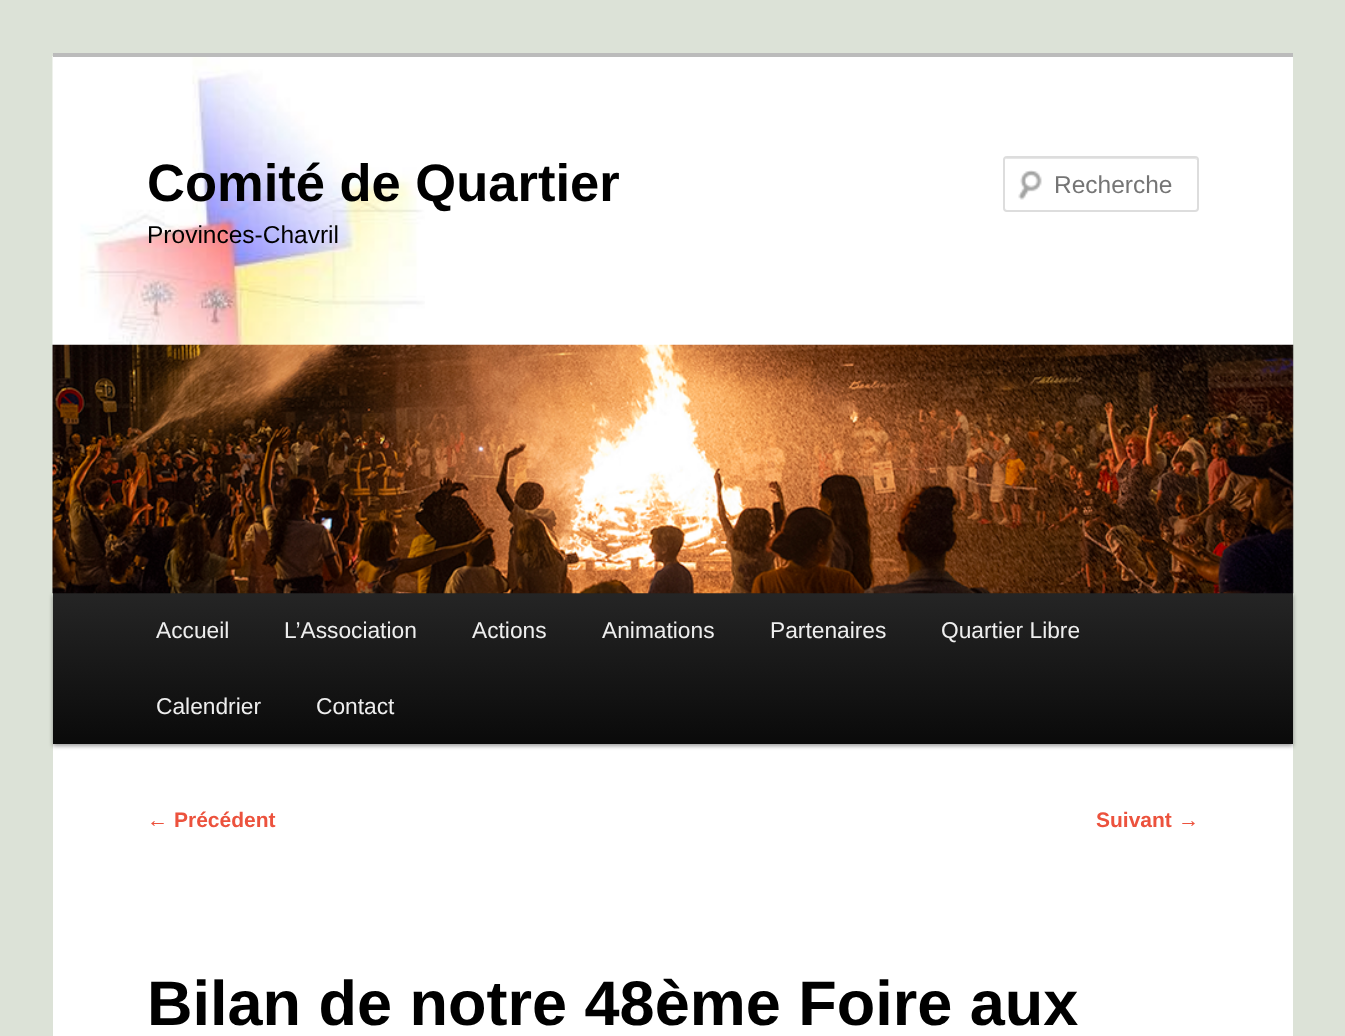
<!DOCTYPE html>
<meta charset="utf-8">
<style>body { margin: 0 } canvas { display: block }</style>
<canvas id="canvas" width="1345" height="1036"></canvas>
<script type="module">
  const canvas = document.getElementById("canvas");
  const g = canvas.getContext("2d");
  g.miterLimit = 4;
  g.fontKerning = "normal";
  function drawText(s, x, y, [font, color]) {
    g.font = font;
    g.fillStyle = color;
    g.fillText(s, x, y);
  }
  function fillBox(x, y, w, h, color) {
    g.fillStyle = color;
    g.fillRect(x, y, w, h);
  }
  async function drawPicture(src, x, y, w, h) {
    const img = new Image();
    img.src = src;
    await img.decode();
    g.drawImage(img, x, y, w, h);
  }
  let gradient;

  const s1 = ["bold 52.5px Liberation Sans", "#000000"];
  const s2 = ["24.5px Liberation Sans", "#000000"];
  const s3 = ["24.5px Liberation Sans", "#757575"];
  const s4 = ["22.75px Liberation Sans", "#EEEEEE"];
  const s5 = ["21px Liberation Sans", "#EC523D"];
  const s6 = ["bold 21px Liberation Sans", "#EC523D"];
  const s7 = ["bold 63px Liberation Sans", "#000000"];

  fillBox(0, 0, 1345, 1036, "#DCE2D7");
  fillBox(53, 57, 1240, 979, "#FFFFFF");
  await drawPicture("pic1.png", 52, 56, 373, 420);
  fillBox(53, 53, 1240, 4, "#BBBBBB");
  drawText("Comité de Quartier", 147, 201, s1);
  drawText("Provinces-Chavril", 147, 243, s2);
  await drawPicture("pic2.png", 1018, 170, 24, 30);
  g.fillStyle = "#E6E6E6";
  g.beginPath();
  g.moveTo(1006, 159);
  g.lineTo(1195, 159);
  g.lineTo(1197, 160);
  g.lineTo(1197, 161);
  g.lineTo(1197, 160);
  g.bezierCurveTo(1197, 159, 1196, 158, 1195, 158);
  g.lineTo(1007, 158);
  g.bezierCurveTo(1006, 158, 1005, 159, 1005, 159);
  g.closePath();
  g.fill();
  g.beginPath();
  g.roundRect(1004, 157, 194, 54, 3);
  g.strokeStyle = "#DDDDDD";
  g.lineWidth = 2;
  g.stroke();
  drawText("Recherche", 1054, 193, s3);
  g.fillStyle = "rgba(0, 0, 0, 0.4)";
  g.filter = "blur(2px)";
  g.beginPath();
  g.rect(53, 595, 1240, 151);
  g.fill();
  g.filter = "none";
  gradient = g.createLinearGradient(673, 593, 673, 744);
  gradient.addColorStop(0, "#252525");
  gradient.addColorStop(1, "#0A0A0A");
  g.fillStyle = gradient;
  g.fillRect(53, 593, 1240, 151);
  await drawPicture("pic3.png", 52, 344, 1242, 250);
  drawText("Accueil", 156, 638, s4);
  drawText("L’Association", 284, 638, s4);
  drawText("Actions", 472, 638, s4);
  drawText("Animations", 602, 638, s4);
  drawText("Partenaires", 770, 638, s4);
  drawText("Quartier Libre", 941, 638, s4);
  drawText("Calendrier", 156, 714, s4);
  drawText("Contact", 316, 714, s4);
  drawText("←", 147, 827, s5);
  drawText("Précédent", 174, 827, s6);
  drawText("Suivant", 1096, 827, s6);
  drawText("→", 1178, 827, s5);
  drawText("Bilan de notre 48ème Foire aux", 147, 1025, s7);
</script>
